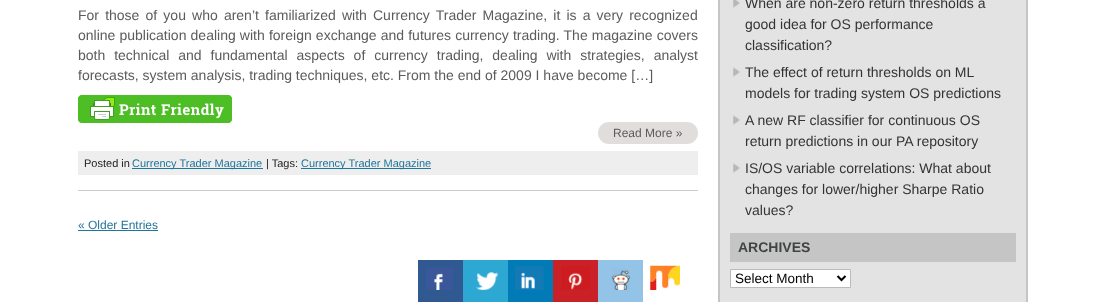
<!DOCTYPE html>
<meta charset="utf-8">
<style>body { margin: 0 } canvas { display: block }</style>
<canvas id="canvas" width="1105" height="302"></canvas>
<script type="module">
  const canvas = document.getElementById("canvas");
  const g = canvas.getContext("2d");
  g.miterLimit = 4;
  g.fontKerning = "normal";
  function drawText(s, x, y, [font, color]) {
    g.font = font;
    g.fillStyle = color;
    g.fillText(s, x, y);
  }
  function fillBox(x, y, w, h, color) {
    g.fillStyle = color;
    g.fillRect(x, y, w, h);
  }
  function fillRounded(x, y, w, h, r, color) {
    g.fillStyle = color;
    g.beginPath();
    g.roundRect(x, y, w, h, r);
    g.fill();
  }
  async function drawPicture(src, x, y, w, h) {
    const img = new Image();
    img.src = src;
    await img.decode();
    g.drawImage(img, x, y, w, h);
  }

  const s1 = ["14px Liberation Sans", "#5B5B5B"];
  const s2 = ["12px Liberation Sans", "#5B5B5B"];
  const s3 = ["11px Liberation Sans", "#222222"];
  const s4 = ["11px Liberation Sans", "#21759B"];
  const s5 = ["12px Liberation Sans", "#21759B"];
  const s6 = ["14px Liberation Sans", "#333333"];
  const s7 = ["bold 14px Liberation Sans", "#414445"];
  const s8 = ["13.5px Liberation Sans", "#000000"];

  fillBox(0, 0, 1105, 302, "#FFFFFF");
  fillBox(78, 190, 620, 1, "#CCCCCC");
  g.wordSpacing = "2.25px";
  drawText("For those of you who aren’t familiarized with Currency Trader Magazine, it is a very recognized", 78, 20, s1);
  g.wordSpacing = "0.25px";
  drawText("online publication dealing with foreign exchange and futures currency trading. The magazine covers", 78, 40, s1);
  g.wordSpacing = "5px";
  drawText("both technical and fundamental aspects of currency trading, dealing with strategies, analyst", 78, 60, s1);
  g.wordSpacing = "0px";
  drawText("forecasts, system analysis, trading techniques, etc. From the end of 2009 I have become […]", 78, 80, s1);
  await drawPicture("pic1.png", 78, 95, 154, 28);
  fillRounded(598, 122, 100, 22, 11, "#E1DDDD");
  drawText("Read More »", 613, 137, s2);
  fillBox(78, 151, 620, 24, "#EEEEEE");
  drawText("Posted in", 84, 167, s3);
  fillBox(132, 168, 131, 1, "#21759B");
  drawText("Currency Trader Magazine", 132, 167, s4);
  drawText("| Tags:", 266, 167, s3);
  fillBox(301, 168, 130, 1, "#21759B");
  drawText("Currency Trader Magazine", 301, 167, s4);
  drawText("« Older Entries", 78, 229, s5);
  fillBox(78, 230, 80, 1, "#21759B");
  g.fillStyle = "#E3E3E3";
  g.beginPath();
  g.rect(719, -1, 308, 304);
  g.fill();
  g.strokeStyle = "#C5C5C5";
  g.lineWidth = 2;
  g.stroke();
  await drawPicture("pic2.png", 733, 0, 7, 8);
  drawText("When are non-zero return thresholds a", 745, 8, s6);
  drawText("good idea for OS performance", 745, 29, s6);
  drawText("classification?", 745, 50, s6);
  await drawPicture("pic3.png", 733, 67, 7, 10);
  drawText("The effect of return thresholds on ML", 745, 77, s6);
  drawText("models for trading system OS predictions", 745, 98, s6);
  await drawPicture("pic3.png", 733, 115, 7, 10);
  drawText("A new RF classifier for continuous OS", 745, 125, s6);
  drawText("return predictions in our PA repository", 745, 146, s6);
  await drawPicture("pic3.png", 733, 163, 7, 10);
  drawText("IS/OS variable correlations: What about", 745, 173, s6);
  drawText("changes for lower/higher Sharpe Ratio", 745, 194, s6);
  drawText("values?", 745, 215, s6);
  fillBox(730, 233, 286, 29, "#C5C5C5");
  drawText("ARCHIVES", 738, 252, s7);
  g.fillStyle = "#FFFFFF";
  g.beginPath();
  g.rect(730.5, 269.5, 120, 18);
  g.fill();
  g.strokeStyle = "#BBBBBB";
  g.lineWidth = 1;
  g.stroke();
  g.beginPath();
  g.moveTo(837.5, 276);
  g.lineTo(841.5, 280);
  g.lineTo(845.5, 276);
  g.strokeStyle = "#000000";
  g.lineWidth = 2;
  g.stroke();
  drawText("Select Month", 735, 283, s8);
  fillBox(418, 260, 45, 42, "#305891");
  await drawPicture("pic4.png", 425, 267, 28, 23);
  fillBox(463, 260, 45, 42, "#2CA8D2");
  await drawPicture("pic5.png", 476, 272, 23, 18);
  fillBox(508, 260, 45, 42, "#007BB6");
  await drawPicture("pic6.png", 515, 266, 29, 24);
  fillBox(553, 260, 45, 42, "#CA2027");
  await drawPicture("pic7.png", 561, 266, 29, 24);
  fillBox(598, 260, 45, 42, "#93C3E6");
  await drawPicture("pic8.png", 611, 269, 19, 21);
  await drawPicture("pic9.png", 650, 265, 30, 25);
</script>
